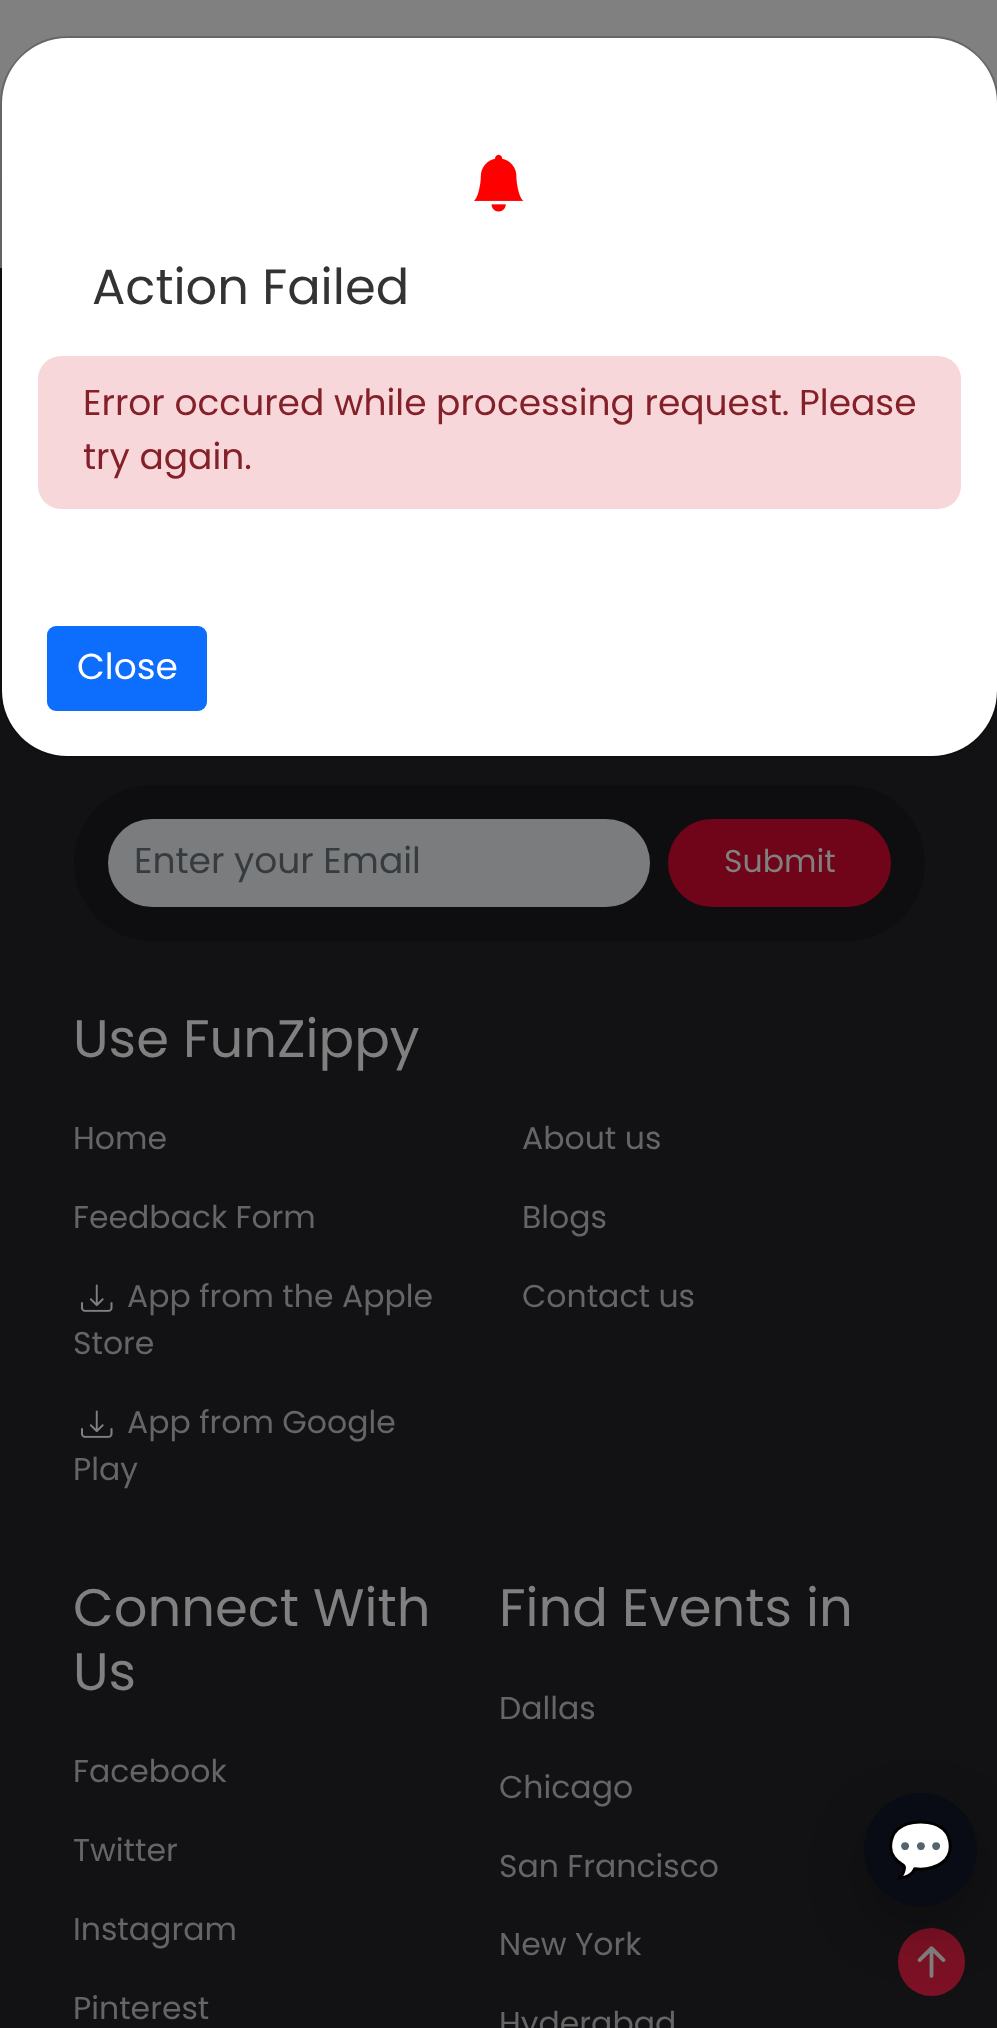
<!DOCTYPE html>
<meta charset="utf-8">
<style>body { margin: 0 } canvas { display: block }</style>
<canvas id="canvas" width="997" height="2028"></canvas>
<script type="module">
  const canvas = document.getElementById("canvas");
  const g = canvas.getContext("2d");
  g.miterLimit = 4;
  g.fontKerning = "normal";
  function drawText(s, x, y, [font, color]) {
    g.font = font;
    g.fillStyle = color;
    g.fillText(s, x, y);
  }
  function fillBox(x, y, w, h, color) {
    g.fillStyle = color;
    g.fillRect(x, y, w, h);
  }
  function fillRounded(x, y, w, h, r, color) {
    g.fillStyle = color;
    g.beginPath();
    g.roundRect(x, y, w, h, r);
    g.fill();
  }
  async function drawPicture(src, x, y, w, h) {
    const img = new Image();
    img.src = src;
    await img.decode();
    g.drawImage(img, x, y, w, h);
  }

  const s1 = ["49.5px Poppins", "#333333"];
  const s2 = ["36px Poppins", "#842029"];
  const s3 = ["36px Poppins", "#FFFFFF"];
  const s4 = ["36px Poppins", "#363B3F"];
  const s5 = ["31.5px Poppins", "#808080"];
  const s6 = ["52.75px Poppins", "#808080"];
  const s7 = ["31.5px Poppins", "#656565"];
  const s8 = ["54px Noto Color Emoji", "#808080"];

  fillBox(0, 0, 997, 2028, "#7C7C7C");
  fillBox(0, 268, 997, 1760, "#121214");
  fillBox(0, 0, 997, 180, "#808080");
  fillRounded(2, 38, 995, 718, 65, "#FFFFFF");
  g.beginPath();
  g.roundRect(1, 37, 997, 720, 67);
  g.strokeStyle = "rgba(0, 0, 0, 0.2)";
  g.lineWidth = 2;
  g.stroke();
  await drawPicture("pic1.png", 474, 154, 50, 58);
  drawText("Action Failed", 92, 304, s1);
  fillRounded(38, 356, 923, 153, 23, "#F8D7DA");
  drawText("Error occured while processing request. Please", 83, 415, s2);
  drawText("try again.", 83, 469, s2);
  g.fillStyle = "#0D6EFD";
  g.beginPath();
  g.roundRect(48, 627, 158, 83, 8);
  g.fill();
  g.strokeStyle = "#0D6EFD";
  g.stroke();
  drawText("Close", 77, 679, s3);
  fillRounded(74, 785, 851, 156, 78, "#0E0E10");
  fillRounded(108, 819, 542, 88, 44, "#7B7C7D");
  drawText("Enter your Email", 134, 873, s4);
  fillRounded(668, 819, 223, 88, 44, "#700418");
  drawText("Submit", 724, 872, s5);
  drawText("Use FunZippy", 73, 1057, s6);
  drawText("Home", 73, 1149, s7);
  drawText("Feedback Form", 73, 1228, s7);
  await drawPicture("pic2.png", 81, 1284, 32, 28);
  drawText("App from the Apple", 127, 1307, s7);
  drawText("Store", 73, 1354, s7);
  await drawPicture("pic2.png", 81, 1410, 32, 28);
  drawText("App from Google", 127, 1433, s7);
  drawText("Play", 73, 1480, s7);
  drawText("About us", 522, 1149, s7);
  drawText("Blogs", 522, 1228, s7);
  drawText("Contact us", 522, 1307, s7);
  drawText("Connect With", 73, 1626, s6);
  drawText("Us", 73, 1690, s6);
  drawText("Facebook", 73, 1782, s7);
  drawText("Twitter", 73, 1861, s7);
  drawText("Instagram", 73, 1940, s7);
  drawText("Pinterest", 73, 2019, s7);
  drawText("Find Events in", 499, 1626, s6);
  drawText("Dallas", 499, 1719, s7);
  drawText("Chicago", 499, 1798, s7);
  drawText("San Francisco", 499, 1877, s7);
  drawText("New York", 499, 1955, s7);
  drawText("Hyderabad", 499, 2034, s7);
  fillRounded(898, 1928, 67, 68, 33.5, "#7C1125");
  await drawPicture("pic3.png", 917, 1946, 29, 32);
  g.fillStyle = "rgba(0, 0, 0, 0.25)";
  g.filter = "blur(28px)";
  g.beginPath();
  g.roundRect(864, 1816, 113, 112, 56);
  g.fill();
  g.filter = "none";
  g.fillStyle = "#090C14";
  g.beginPath();
  g.arc(920.5, 1849.5, 56.5, 0, Math.PI * 2);
  g.fill();
  drawText("💬", 887, 1868, s8);
</script>
